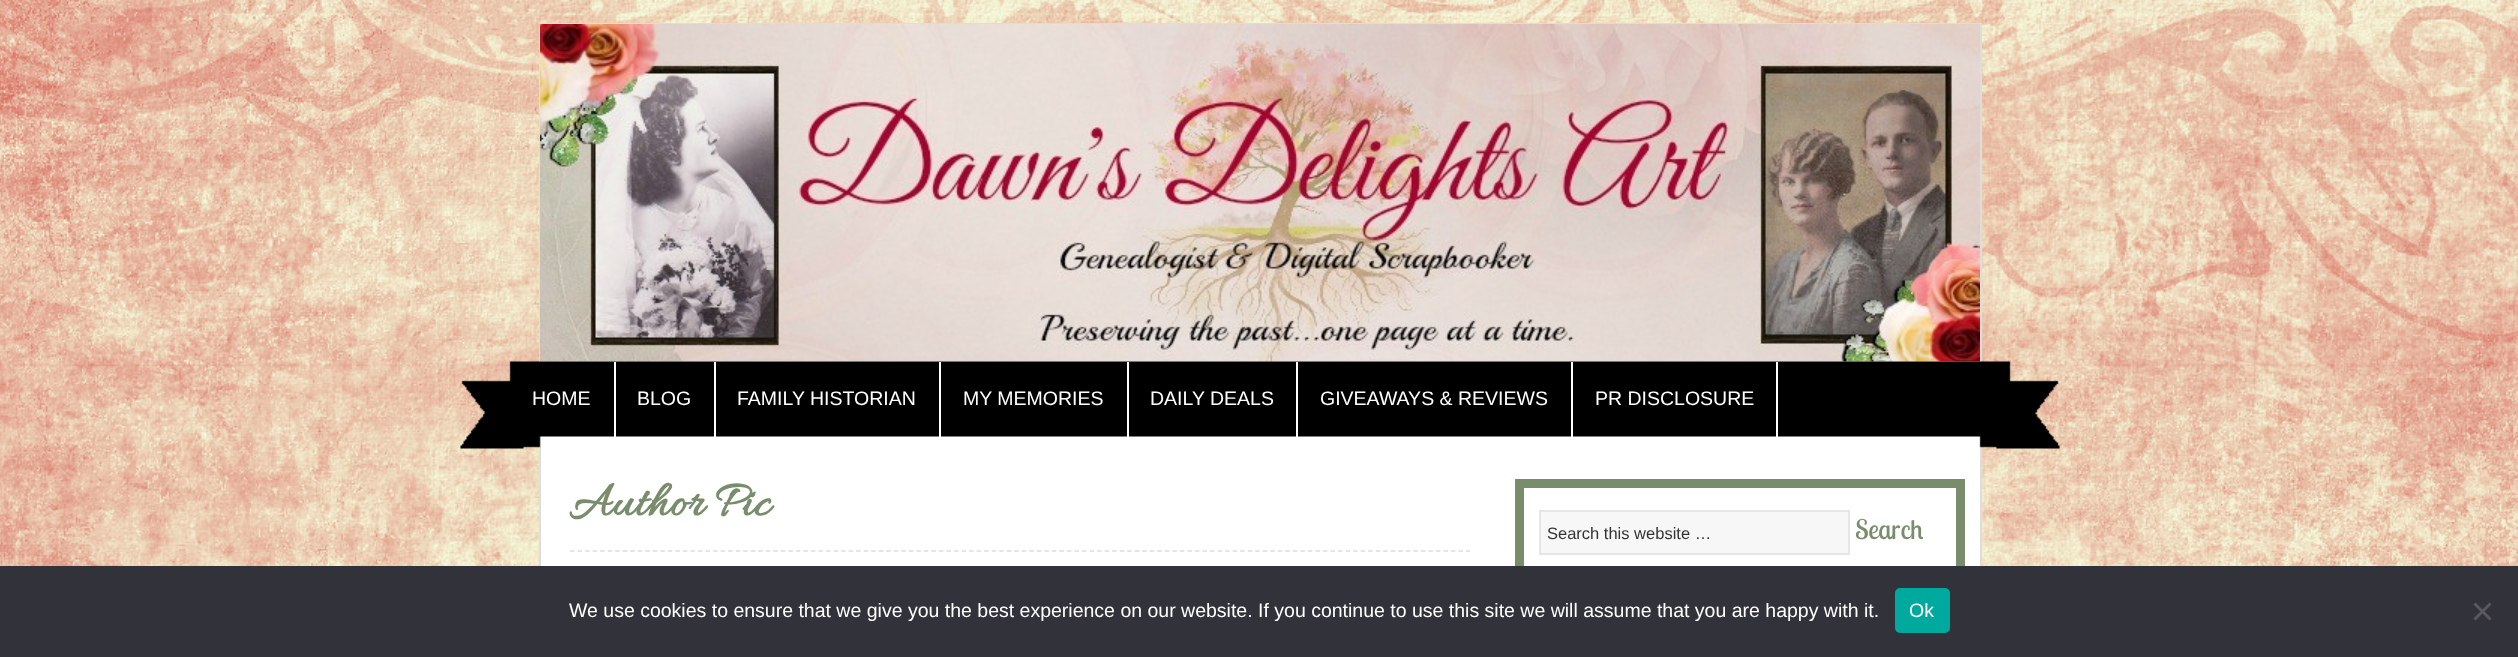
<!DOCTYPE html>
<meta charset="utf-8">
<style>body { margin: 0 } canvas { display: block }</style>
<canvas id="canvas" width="2518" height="657"></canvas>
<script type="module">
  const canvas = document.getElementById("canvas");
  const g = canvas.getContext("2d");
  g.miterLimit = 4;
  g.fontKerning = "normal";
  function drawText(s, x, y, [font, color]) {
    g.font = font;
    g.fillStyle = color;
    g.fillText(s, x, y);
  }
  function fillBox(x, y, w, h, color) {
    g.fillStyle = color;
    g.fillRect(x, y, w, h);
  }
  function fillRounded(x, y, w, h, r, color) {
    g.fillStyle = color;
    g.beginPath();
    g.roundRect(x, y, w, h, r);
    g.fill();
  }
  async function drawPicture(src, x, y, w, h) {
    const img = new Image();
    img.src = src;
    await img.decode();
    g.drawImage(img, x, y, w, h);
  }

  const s1 = ["19.5px Liberation Sans", "#FFFFFF"];
  const s2 = ["bold 51px Allura", "#798D6C"];
  const s3 = ["16.5px Liberation Sans", "#333333"];
  const s4 = ["27px Lobster Two", "#798D6C"];

  fillBox(0, 0, 2518, 657, "#FFFFFF");
  await drawPicture("pic1.png", 0, 0, 2518, 566);
  fillBox(541, 361, 1439, 205, "#FFFFFF");
  g.strokeStyle = "#DDDDDD";
  g.lineWidth = 2;
  g.strokeRect(540, 24, 1441, 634);
  await drawPicture("pic2.png", 540, 24, 1440, 338);
  await drawPicture("pic3.png", 460, 361, 1600, 88);
  fillBox(614, 362, 2, 75, "#FFFFFF");
  drawText("HOME", 532, 405, s1);
  fillBox(714, 362, 2, 75, "#FFFFFF");
  drawText("BLOG", 637, 405, s1);
  fillBox(939, 362, 2, 75, "#FFFFFF");
  drawText("FAMILY HISTORIAN", 737, 405, s1);
  fillBox(1127, 362, 2, 75, "#FFFFFF");
  drawText("MY MEMORIES", 963, 405, s1);
  fillBox(1296, 362, 2, 75, "#FFFFFF");
  drawText("DAILY DEALS", 1150, 405, s1);
  fillBox(1571, 362, 2, 75, "#FFFFFF");
  drawText("GIVEAWAYS & REVIEWS", 1320, 405, s1);
  fillBox(1776, 362, 2, 75, "#FFFFFF");
  drawText("PR DISCLOSURE", 1595, 405, s1);
  drawText("Author Pic", 569, 515, s2);
  g.beginPath();
  g.moveTo(570, 551);
  g.lineTo(1470, 551);
  g.lineWidth = 1.5;
  g.setLineDash([4.5, 3.03]);
  g.stroke();
  g.strokeStyle = "#798D6C";
  g.lineWidth = 9;
  g.setLineDash([]);
  g.strokeRect(1519.5, 483.5, 441, 106);
  g.fillStyle = "#F7F7F7";
  g.beginPath();
  g.rect(1540, 511, 309, 43);
  g.fill();
  g.strokeStyle = "#E6E6E6";
  g.lineWidth = 2;
  g.stroke();
  drawText("Search this website …", 1547, 539, s3);
  g.save();
  g.beginPath();
  g.rect(1856, 497, 67, 51);
  g.clip();
  drawText("Search", 1855, 539, s4);
  g.restore();
  fillBox(0, 566, 2518, 91, "#32323A");
  drawText("We use cookies to ensure that we give you the best experience on our website. If you continue to use this site we will assume that you are happy with it.", 569, 617, s1);
  fillRounded(1895, 588, 55, 45, 5, "#00A99D");
  drawText("Ok", 1909, 617, s1);
  g.fillStyle = "#59595D";
  g.beginPath();
  g.moveTo(2489.5, 602.5);
  g.lineTo(2491.5, 604.5);
  g.lineTo(2475.5, 620.5);
  g.lineTo(2473.5, 618.5);
  g.closePath();
  g.fill();
  g.beginPath();
  g.moveTo(2473.5, 604.5);
  g.lineTo(2475.5, 602.5);
  g.lineTo(2491.5, 618.5);
  g.lineTo(2489.5, 620.5);
  g.closePath();
  g.fill();
</script>
